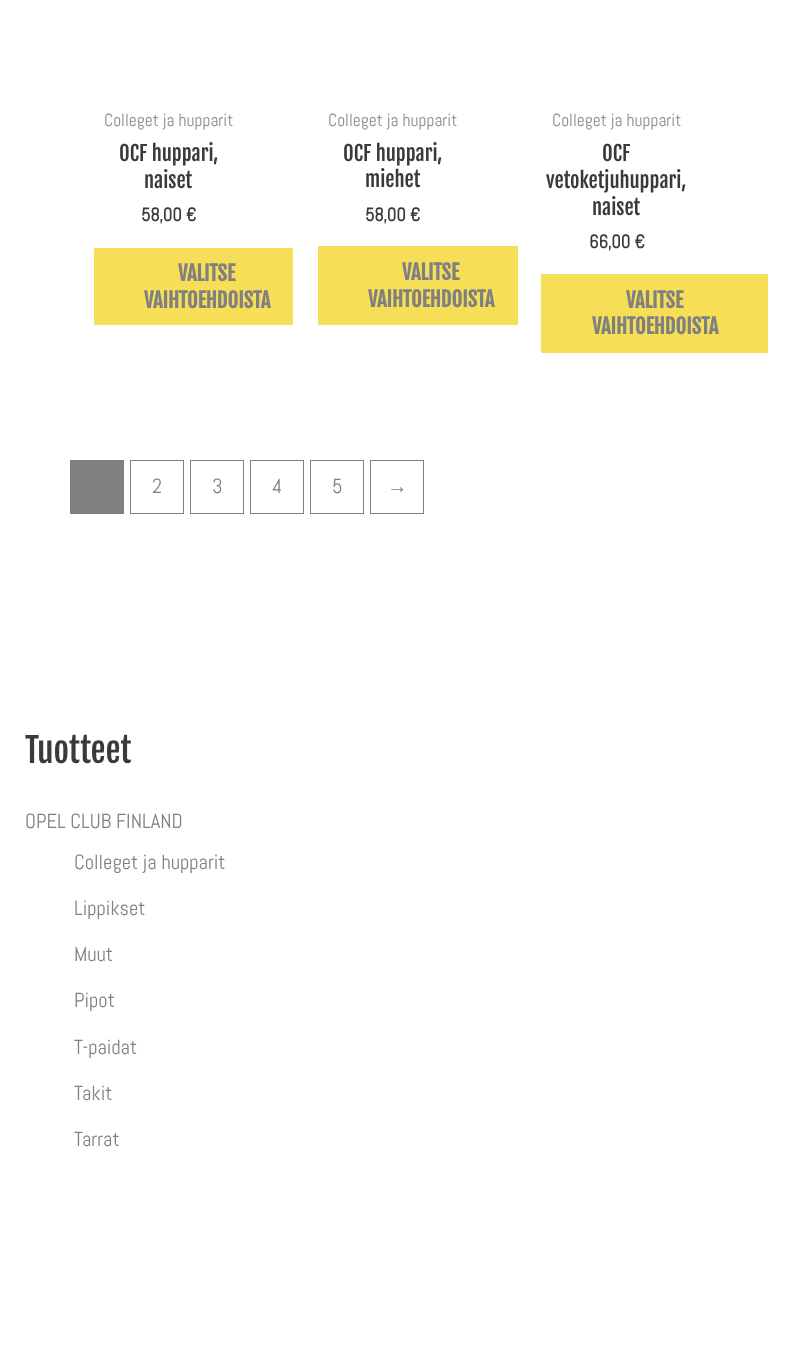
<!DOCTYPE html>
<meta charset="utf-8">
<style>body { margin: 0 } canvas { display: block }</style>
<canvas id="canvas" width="787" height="1357"></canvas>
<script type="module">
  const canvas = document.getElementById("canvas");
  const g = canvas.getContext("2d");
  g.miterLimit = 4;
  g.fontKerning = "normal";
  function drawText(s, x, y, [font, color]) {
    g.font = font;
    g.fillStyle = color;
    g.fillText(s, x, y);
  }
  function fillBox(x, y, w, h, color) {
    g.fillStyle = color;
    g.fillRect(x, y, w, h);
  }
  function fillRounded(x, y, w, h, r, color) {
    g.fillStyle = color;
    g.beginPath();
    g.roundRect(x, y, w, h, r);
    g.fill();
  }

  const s1 = ["17.5px Abel", "#898989"];
  const s2 = ["20.5px Fjalla One", "#3A3A3A"];
  const s3 = ["bold 18.5px Abel", "#3A3A3A"];
  const s4 = ["bold 20.5px Fjalla One", "#808080"];
  const s5 = ["20.5px Abel", "#808080"];
  const s6 = ["20.5px Liberation Sans", "#808080"];
  const s7 = ["33.5px Fjalla One", "#3A3A3A"];

  fillBox(0, 0, 787, 1357, "#FFFFFF");
  drawText("Colleget ja hupparit", 104, 126, s1);
  drawText("OCF huppari,", 119, 161, s2);
  drawText("naiset", 144, 188, s2);
  drawText("58,00 €", 141, 221, s3);
  fillRounded(94, 248, 226, 77, 1, "#F6DE57");
  drawText("VALITSE", 178, 281, s4);
  drawText("VAIHTOEHDOISTA", 144, 308, s4);
  fillBox(293, 248, 27, 77, "#FFFFFF");
  drawText("Colleget ja hupparit", 328, 126, s1);
  drawText("OCF huppari,", 343, 161, s2);
  drawText("miehet", 365, 187, s2);
  drawText("58,00 €", 365, 221, s3);
  fillRounded(318, 246, 226, 79, 1, "#F6DE57");
  drawText("VALITSE", 402, 280, s4);
  drawText("VAIHTOEHDOISTA", 368, 307, s4);
  fillBox(518, 246, 26, 79, "#FFFFFF");
  drawText("Colleget ja hupparit", 552, 126, s1);
  drawText("OCF", 602, 161, s2);
  drawText("vetoketjuhuppari,", 546, 188, s2);
  drawText("naiset", 592, 215, s2);
  drawText("66,00 €", 589, 248, s3);
  fillRounded(541, 274, 227, 79, 1, "#F6DE57");
  drawText("VALITSE", 626, 308, s4);
  drawText("VAIHTOEHDOISTA", 592, 334, s4);
  g.strokeStyle = "#808080";
  g.strokeRect(70.5, 460.5, 53, 53);
  fillBox(71, 461, 52, 52, "#808080");
  g.strokeRect(130.5, 460.5, 53, 53);
  drawText("2", 152, 493, s5);
  g.strokeRect(190.5, 460.5, 53, 53);
  drawText("3", 212, 493, s5);
  g.strokeRect(250.5, 460.5, 53, 53);
  drawText("4", 272, 493, s5);
  g.strokeRect(310.5, 460.5, 53, 53);
  drawText("5", 332, 493, s5);
  g.strokeRect(370.5, 460.5, 53, 53);
  drawText("→", 387, 493, s6);
  drawText("Tuotteet", 25, 763, s7);
  drawText("OPEL CLUB FINLAND", 25, 828, s5);
  drawText("Colleget ja hupparit", 74, 869, s5);
  drawText("Lippikset", 74, 915, s5);
  drawText("Muut", 74, 961, s5);
  drawText("Pipot", 74, 1007, s5);
  drawText("T-paidat", 74, 1054, s5);
  drawText("Takit", 74, 1100, s5);
  drawText("Tarrat", 74, 1146, s5);
</script>
